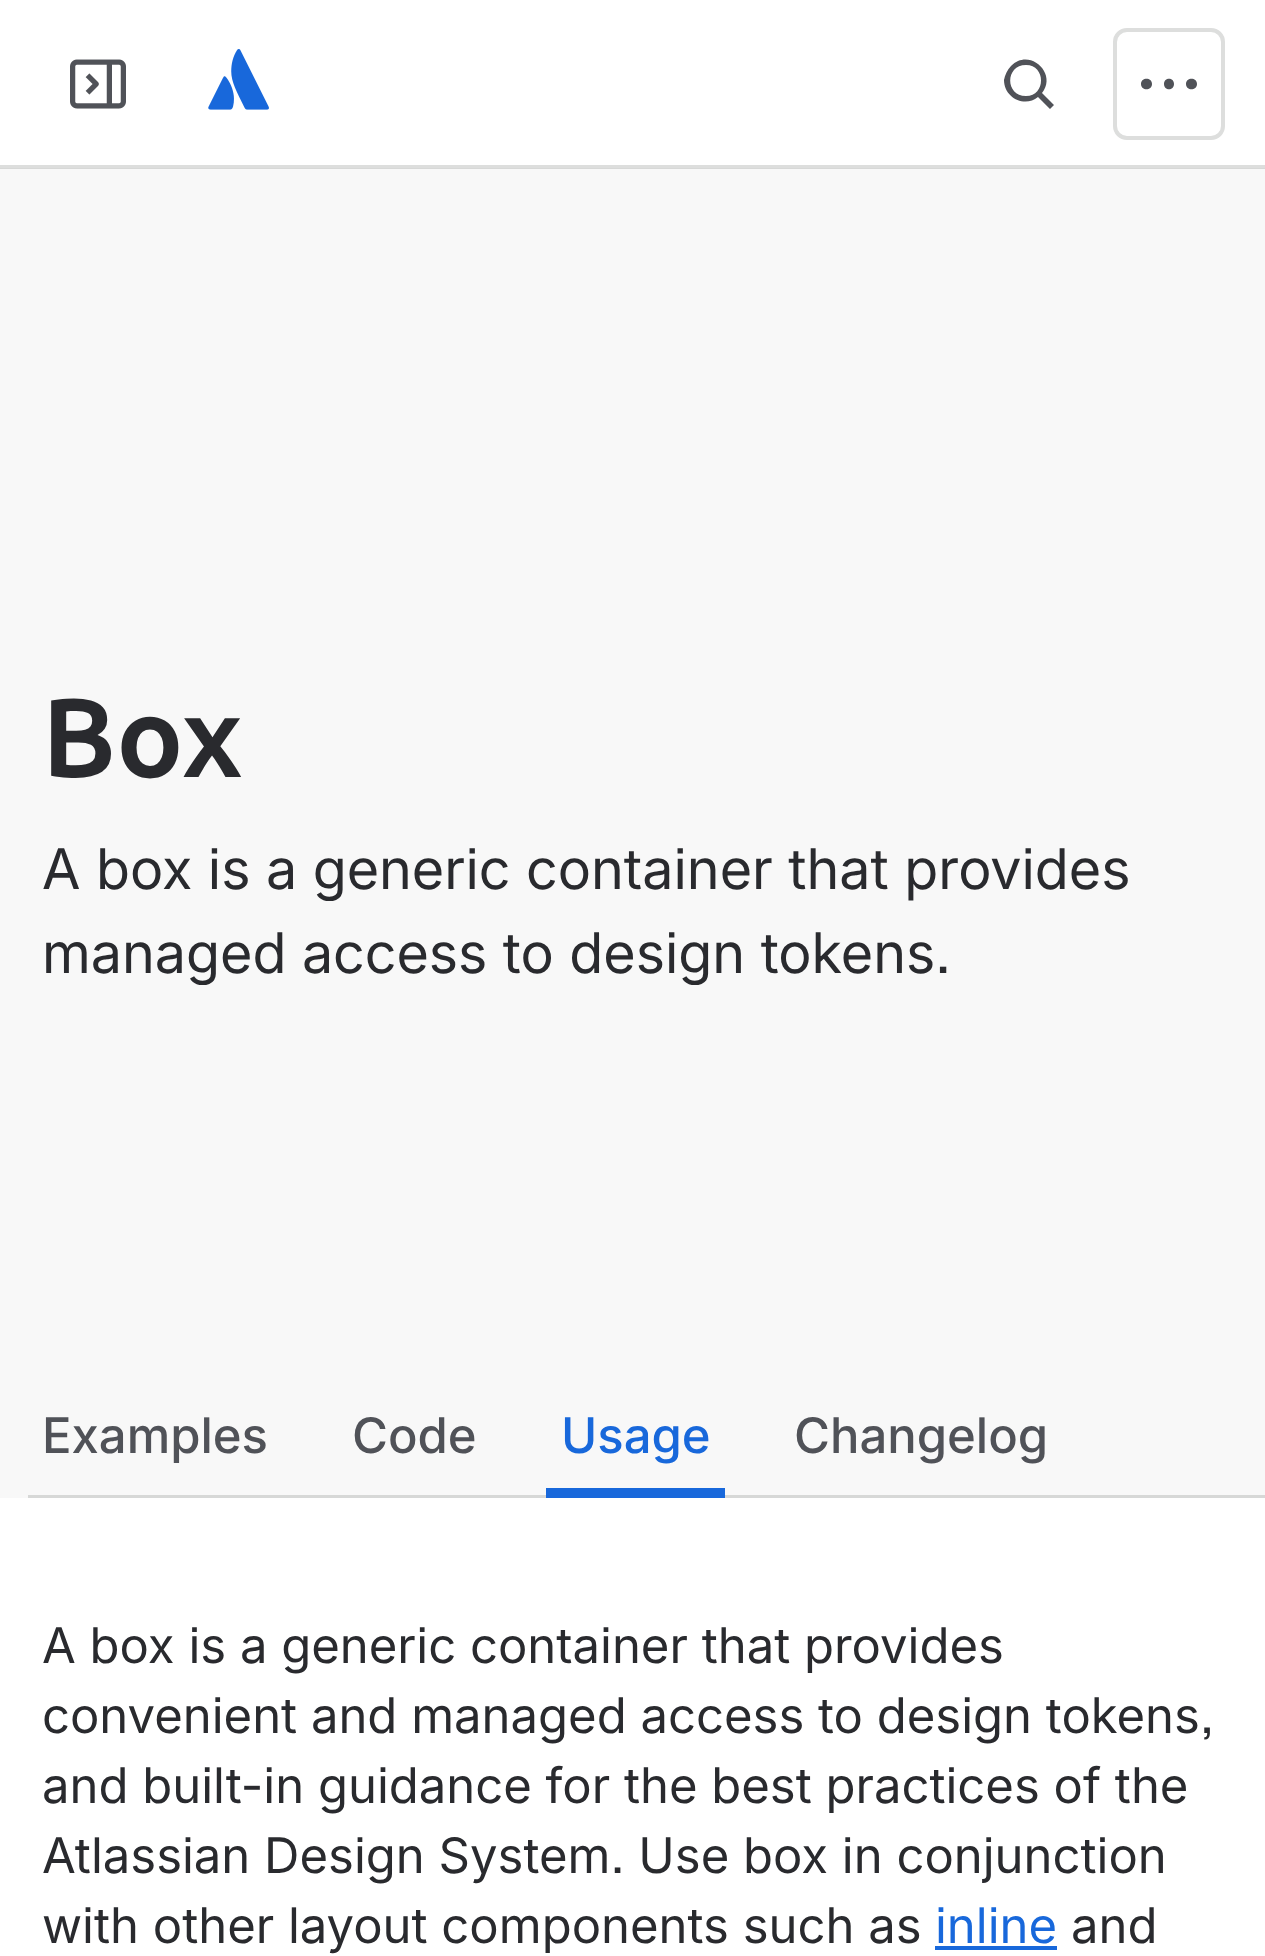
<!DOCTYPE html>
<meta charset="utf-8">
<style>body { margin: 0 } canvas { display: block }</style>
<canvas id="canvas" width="1265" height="1956"></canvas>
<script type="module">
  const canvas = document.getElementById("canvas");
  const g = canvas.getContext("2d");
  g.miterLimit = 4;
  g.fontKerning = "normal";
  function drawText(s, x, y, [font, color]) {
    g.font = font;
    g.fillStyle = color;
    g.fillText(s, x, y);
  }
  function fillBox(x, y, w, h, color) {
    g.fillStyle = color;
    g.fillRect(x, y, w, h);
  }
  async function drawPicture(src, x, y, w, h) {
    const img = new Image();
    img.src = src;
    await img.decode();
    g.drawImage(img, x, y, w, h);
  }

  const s1 = ["bold 112px Ubuntu", "#292A2E"];
  const s2 = ["56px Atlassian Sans", "#292A2E"];
  const s3 = ["500 49px Atlassian Sans", "#505258"];
  const s4 = ["500 49px Atlassian Sans", "#1868DB"];
  const s5 = ["49px 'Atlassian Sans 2'", "#292A2E"];
  const s6 = ["49px 'Atlassian Sans 2'", "#1868DB"];

  fillBox(0, 0, 1265, 1956, "#FFFFFF");
  fillBox(0, 165, 1265, 3, "#DDDEDD");
  await drawPicture("pic1.png", 70, 59, 56, 50);
  await drawPicture("pic2.png", 208, 49, 61, 61);
  g.fillStyle = "#505258";
  g.beginPath();
  g.moveTo(1026, 65);
  g.bezierCurveTo(1005, 65, 1005, 96, 1026, 96);
  g.bezierCurveTo(1046, 96, 1046, 65, 1026, 65);
  g.moveTo(1004, 80);
  g.bezierCurveTo(1005, 75, 1007, 70, 1011, 66);
  g.bezierCurveTo(1029, 47, 1058, 73, 1042, 93);
  g.lineTo(1054, 105);
  g.lineTo(1050, 109);
  g.lineTo(1038, 97);
  g.bezierCurveTo(1025, 108, 1004, 98, 1004, 80);
  g.fill("evenodd");
  g.beginPath();
  g.moveTo(1141, 84);
  g.bezierCurveTo(1141, 77, 1152, 77, 1152, 84);
  g.bezierCurveTo(1152, 91, 1141, 91, 1141, 84);
  g.moveTo(1164, 84);
  g.bezierCurveTo(1164, 77, 1174, 77, 1174, 84);
  g.bezierCurveTo(1174, 91, 1164, 91, 1164, 84);
  g.moveTo(1186, 84);
  g.bezierCurveTo(1186, 77, 1197, 77, 1197, 84);
  g.bezierCurveTo(1197, 91, 1186, 91, 1186, 84);
  g.fill("evenodd");
  g.beginPath();
  g.roundRect(1115, 30, 108, 108, 12);
  g.strokeStyle = "#DDDEDD";
  g.lineWidth = 4;
  g.stroke();
  fillBox(0, 169, 1265, 1329, "#F8F8F8");
  fillBox(0, 168, 1265, 1, "#D7D8D7");
  drawText("Box", 42, 777, s1);
  drawText("A box is a generic container that provides", 42, 889, s2);
  drawText("managed access to design tokens.", 42, 973, s2);
  drawText("Examples", 42, 1453, s3);
  drawText("Code", 352, 1453, s3);
  drawText("Usage", 561, 1453, s4);
  fillBox(28, 1495, 1237, 3, "#D7D8D7");
  fillBox(546, 1488, 179, 10, "#1868DB");
  drawText("Changelog", 794, 1453, s3);
  drawText("A box is a generic container that provides", 42, 1663, s5);
  drawText("convenient and managed access to design tokens,", 42, 1733, s5);
  drawText("and built-in guidance for the best practices of the", 42, 1803, s5);
  drawText("Atlassian Design System. Use box in conjunction", 42, 1873, s5);
  drawText("with other layout components such as", 42, 1943, s5);
  drawText("inline", 935, 1943, s6);
  fillBox(935, 1946, 122, 4, "#1868DB");
  drawText("and", 1071, 1943, s5);
</script>
